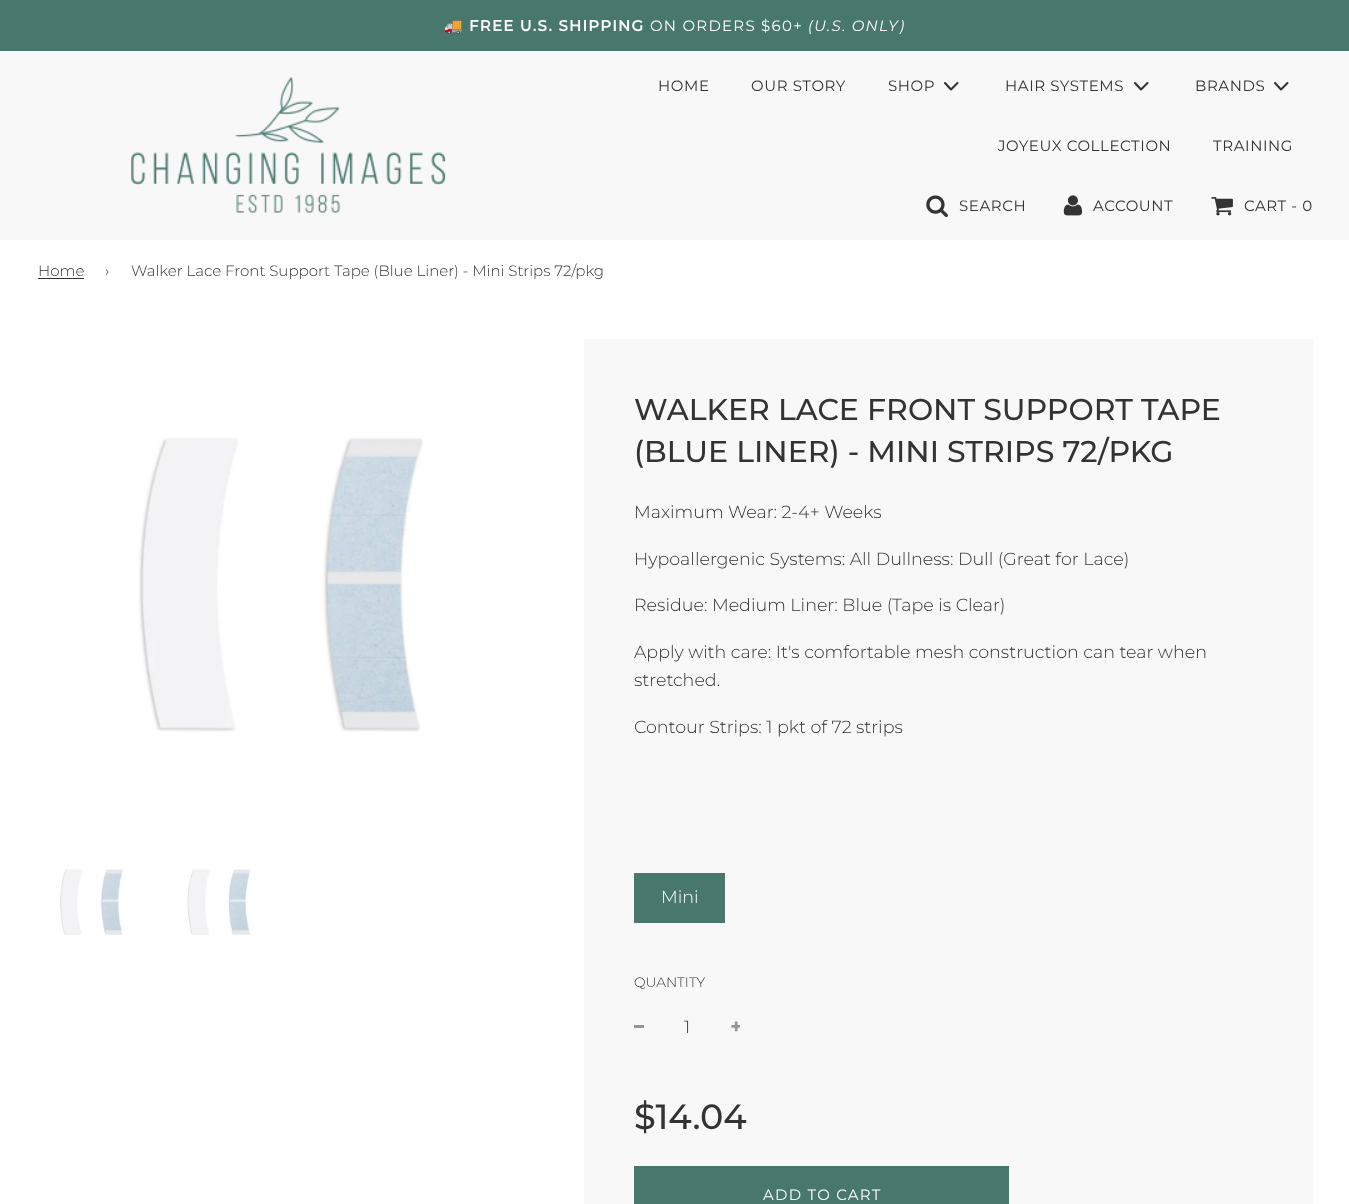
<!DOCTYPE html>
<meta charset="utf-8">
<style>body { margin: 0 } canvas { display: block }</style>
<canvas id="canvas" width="1349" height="1204"></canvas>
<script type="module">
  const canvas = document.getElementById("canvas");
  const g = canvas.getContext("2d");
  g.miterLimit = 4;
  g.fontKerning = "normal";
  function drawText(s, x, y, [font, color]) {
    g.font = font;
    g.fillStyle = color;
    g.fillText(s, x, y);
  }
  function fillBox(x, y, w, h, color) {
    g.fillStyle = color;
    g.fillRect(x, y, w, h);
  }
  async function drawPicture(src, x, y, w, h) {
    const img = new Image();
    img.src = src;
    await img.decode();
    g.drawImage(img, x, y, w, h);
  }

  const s1 = ["15px Noto Color Emoji", "#FFFFFF"];
  const s2 = ["bold 15px Montserrat", "#FFFFFF"];
  const s3 = ["15px Montserrat", "#FFFFFF"];
  const s4 = ["italic 15px Montserrat", "#FFFFFF"];
  const s5 = ["15px Montserrat", "#333333"];
  const s6 = ["300 15px Montserrat", "#333333"];
  const s7 = ["500 30px Montserrat", "#333333"];
  const s8 = ["300 17.5px Montserrat", "#333333"];
  const s9 = ["300 17.5px Montserrat", "#FFFFFF"];
  const s10 = ["300 13.75px Montserrat", "#333333"];
  const s11 = ["500 35px Montserrat", "#333333"];

  fillBox(0, 0, 1349, 1204, "#FFFFFF");
  fillBox(0, 0, 1349, 51, "#48786D");
  g.letterSpacing = "1.25px";
  drawText("🚚", 444, 31, s1);
  drawText("FREE U.S. SHIPPING", 469, 31, s2);
  drawText("ON ORDERS $60+", 650, 31, s3);
  drawText("(U.S. ONLY)", 808, 31, s4);
  fillBox(0, 51, 1349, 189, "#F8F8F8");
  await drawPicture("pic1.png", 131, 77, 315, 136);
  g.letterSpacing = "0.6px";
  drawText("HOME", 658, 91, s5);
  drawText("OUR STORY", 751, 91, s5);
  drawText("SHOP", 888, 91, s5);
  g.beginPath();
  g.moveTo(945, 83);
  g.lineTo(951, 89.5);
  g.lineTo(957.5, 83);
  g.strokeStyle = "#333333";
  g.lineWidth = 2.1;
  g.lineCap = "round";
  g.lineJoin = "round";
  g.stroke();
  drawText("HAIR SYSTEMS", 1005, 91, s5);
  g.beginPath();
  g.moveTo(1135, 83);
  g.lineTo(1141, 89.5);
  g.lineTo(1147.5, 83);
  g.stroke();
  drawText("BRANDS", 1195, 91, s5);
  g.beginPath();
  g.moveTo(1275, 83);
  g.lineTo(1281, 89.5);
  g.lineTo(1287.5, 83);
  g.stroke();
  drawText("JOYEUX COLLECTION", 998, 151, s5);
  drawText("TRAINING", 1213, 151, s5);
  await drawPicture("pic2.png", 926, 195, 22, 23);
  drawText("SEARCH", 959, 211, s5);
  await drawPicture("pic3.png", 1063, 195, 20, 21);
  drawText("ACCOUNT", 1093, 211, s5);
  await drawPicture("pic4.png", 1211, 197, 22, 19);
  drawText("CART - 0", 1244, 211, s5);
  g.letterSpacing = "0px";
  drawText("Home", 38, 276, s6);
  fillBox(38, 278, 46, 1, "#333333");
  drawText("›", 105, 276, s6);
  drawText("Walker Lace Front Support Tape (Blue Liner) - Mini Strips 72/pkg", 131, 276, s6);
  await drawPicture("pic5.png", 139, 437, 284, 295);
  await drawPicture("pic6.png", 60, 869, 63, 66);
  await drawPicture("pic7.png", 187, 869, 64, 66);
  fillBox(584, 339, 729, 865, "#F8F8F8");
  drawText("WALKER LACE FRONT SUPPORT TAPE", 634, 420, s7);
  drawText("(BLUE LINER) - MINI STRIPS 72/PKG", 634, 462, s7);
  drawText("Maximum Wear: 2-4+ Weeks", 634, 518, s8);
  drawText("Hypoallergenic Systems: All Dullness: Dull (Great for Lace)", 634, 565, s8);
  drawText("Residue: Medium Liner: Blue (Tape is Clear)", 634, 611, s8);
  drawText("Apply with care: It's comfortable mesh construction can tear when", 634, 658, s8);
  drawText("stretched.", 634, 686, s8);
  drawText("Contour Strips: 1 pkt of 72 strips", 634, 733, s8);
  fillBox(634, 873, 91, 50, "#48786D");
  drawText("Mini", 661, 903, s9);
  drawText("QUANTITY", 634, 987, s10);
  fillBox(634, 1025, 10, 3, "#969696");
  drawText("1", 684, 1033, s8);
  await drawPicture("pic8.png", 731, 1021, 9, 11);
  drawText("$14.04", 634, 1129, s11);
  fillBox(634, 1166, 375, 38, "#48786D");
  g.letterSpacing = "1.25px";
  drawText("ADD TO CART", 763, 1200, s3);
</script>
